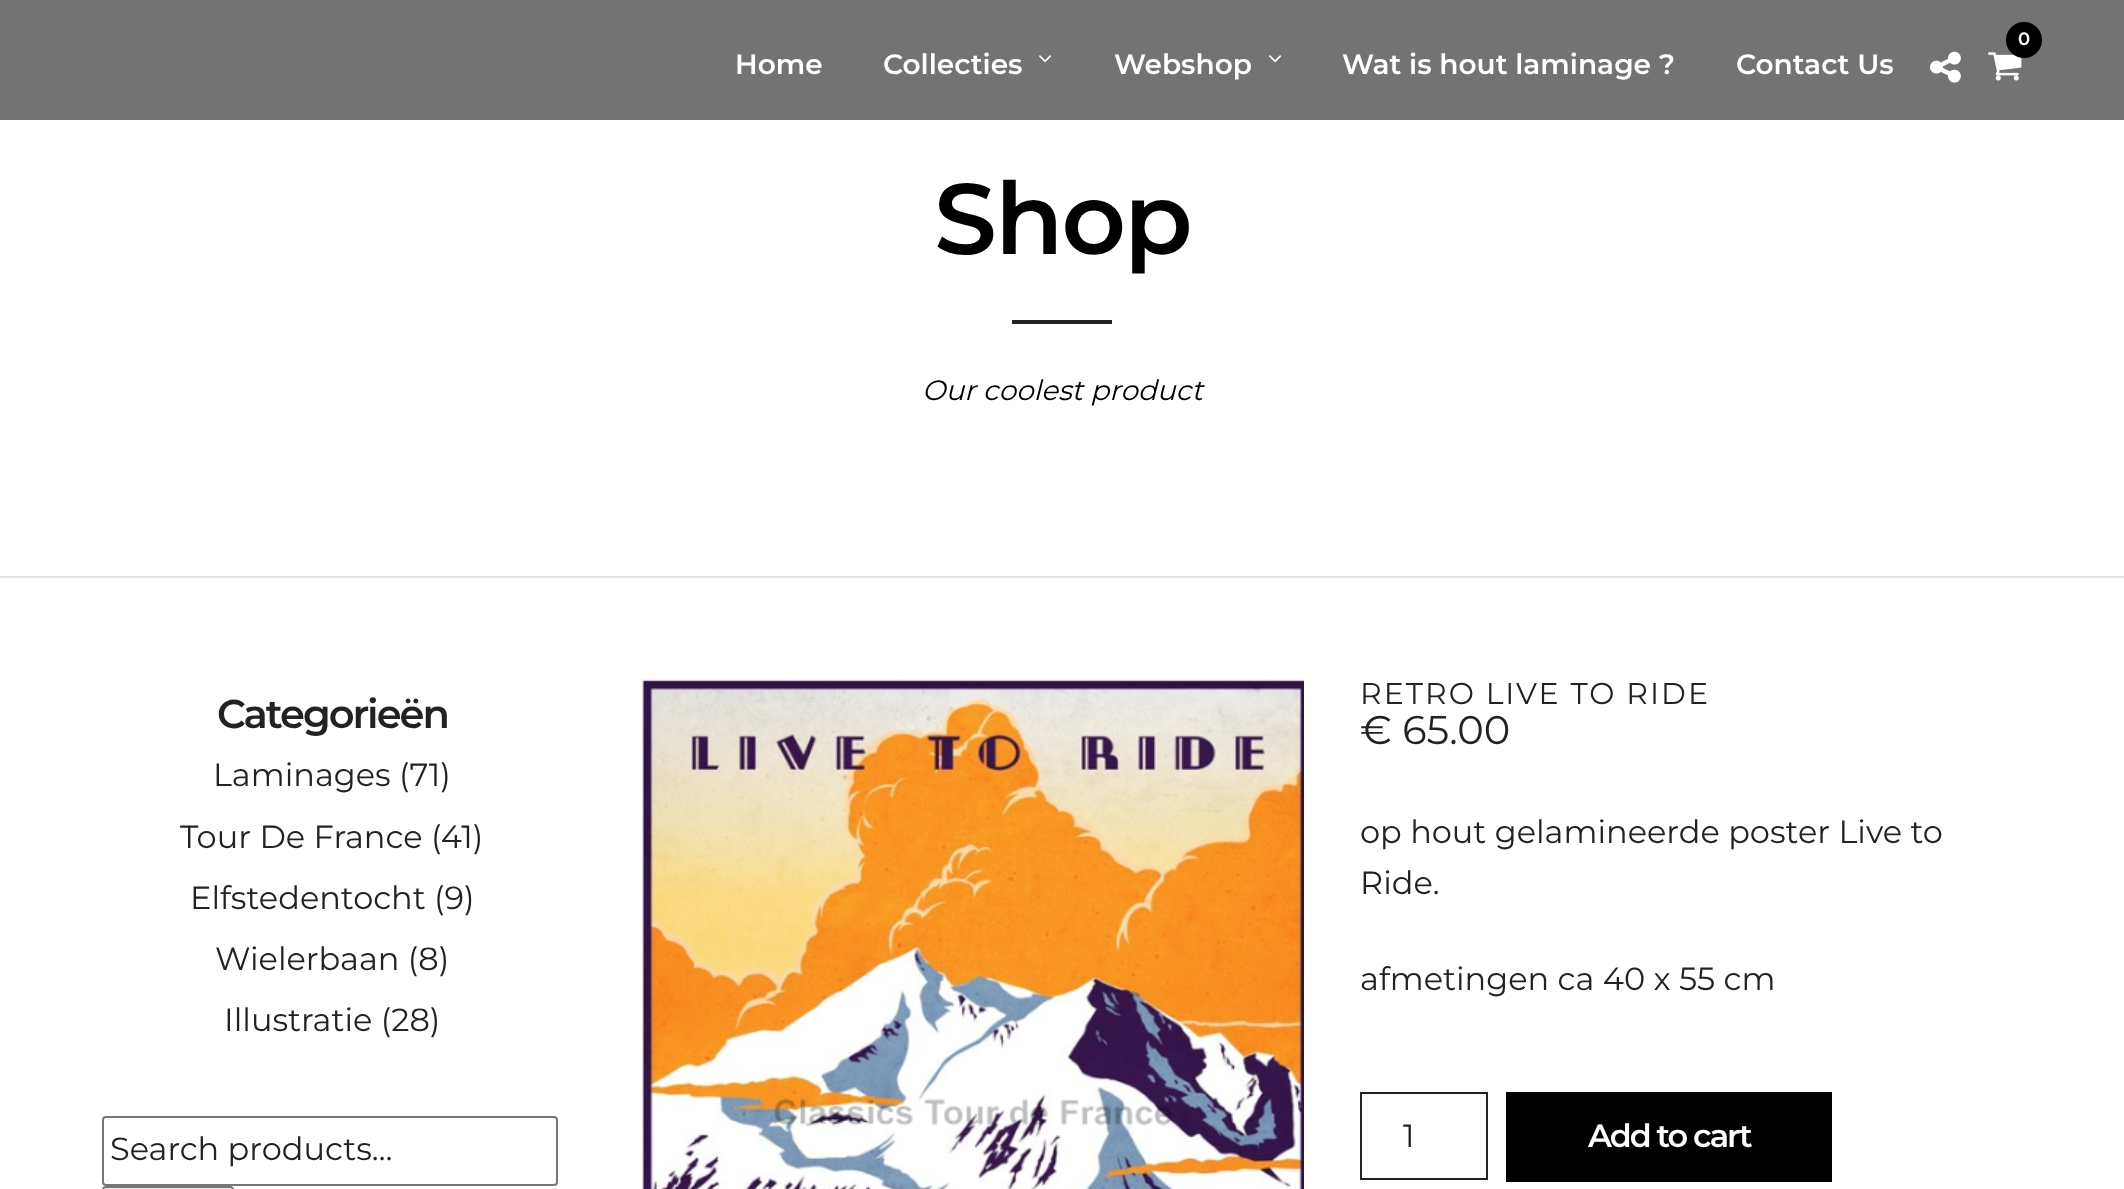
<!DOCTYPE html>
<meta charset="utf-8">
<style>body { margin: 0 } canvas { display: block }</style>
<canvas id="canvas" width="2124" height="1189"></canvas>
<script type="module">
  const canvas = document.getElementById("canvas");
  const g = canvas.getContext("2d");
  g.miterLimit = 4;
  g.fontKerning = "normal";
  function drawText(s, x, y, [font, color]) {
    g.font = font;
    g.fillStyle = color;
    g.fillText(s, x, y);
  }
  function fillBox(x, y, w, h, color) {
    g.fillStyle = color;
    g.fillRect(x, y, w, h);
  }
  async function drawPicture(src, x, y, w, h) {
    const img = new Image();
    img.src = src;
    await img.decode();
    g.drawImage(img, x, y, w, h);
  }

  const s1 = ["600 18px Montserrat", "#FFFFFF"];
  const s2 = ["600 28px Montserrat", "#FFFFFF"];
  const s3 = ["600 100px Montserrat", "#000000"];
  const s4 = ["italic 28px Montserrat", "#000000"];
  const s5 = ["600 40px Montserrat", "#222222"];
  const s6 = ["32px Montserrat", "#222222"];
  const s7 = ["30px Montserrat", "#222222"];
  const s8 = ["40px Montserrat", "#222222"];
  const s9 = ["600 32px Montserrat", "#FFFFFF"];

  fillBox(0, 0, 2124, 1189, "#FFFFFF");
  fillBox(0, 0, 2124, 120, "#737373");
  await drawPicture("pic1.png", 1988, 52, 34, 29);
  g.fillStyle = "#000000";
  g.beginPath();
  g.arc(2024, 40, 18, 0, Math.PI * 2);
  g.fill();
  drawText("0", 2018, 45, s1);
  await drawPicture("pic2.png", 1930, 51, 31, 32);
  drawText("Home", 735, 74, s2);
  drawText("Collecties", 883, 74, s2);
  await drawPicture("pic3.png", 1039, 55, 13, 8);
  drawText("Webshop", 1114, 74, s2);
  await drawPicture("pic3.png", 1269, 55, 13, 8);
  drawText("Wat is hout laminage ?", 1342, 74, s2);
  drawText("Contact Us", 1736, 74, s2);
  fillBox(0, 576, 2124, 2, "#E1E1E1");
  g.letterSpacing = "-2px";
  drawText("Shop", 934, 254, s3);
  fillBox(1012, 320, 100, 4, "#222222");
  g.letterSpacing = "0px";
  drawText("Our coolest product", 922, 400, s4);
  g.letterSpacing = "-2px";
  drawText("Categorieën", 217, 728, s5);
  g.letterSpacing = "0px";
  drawText("Laminages (71)", 213, 786, s6);
  drawText("Tour De France (41)", 180, 848, s6);
  drawText("Elfstedentocht (9)", 190, 909, s6);
  drawText("Wielerbaan (8)", 215, 970, s6);
  drawText("Illustratie (28)", 224, 1031, s6);
  g.beginPath();
  g.roundRect(103, 1117, 454, 68, 3);
  g.strokeStyle = "#767676";
  g.lineWidth = 2;
  g.stroke();
  drawText("Search products…", 110, 1160, s6);
  g.fillStyle = "#EFEFEF";
  g.beginPath();
  g.roundRect(103, 1187, 130, 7, 3);
  g.fill();
  g.stroke();
  await drawPicture("pic4.png", 642, 678, 662, 511);
  g.letterSpacing = "2px";
  drawText("RETRO LIVE TO RIDE", 1360, 704, s7);
  g.letterSpacing = "0px";
  drawText("€ 65.00", 1360, 744, s8);
  drawText("op hout gelamineerde poster Live to", 1360, 843, s6);
  drawText("Ride.", 1360, 894, s6);
  drawText("afmetingen ca 40 x 55 cm", 1360, 990, s6);
  g.strokeStyle = "#222222";
  g.strokeRect(1361, 1093, 126, 86);
  drawText("1", 1403, 1147, s6);
  fillBox(1506, 1092, 326, 90, "#000000");
  g.letterSpacing = "-2px";
  drawText("Add to cart", 1588, 1147, s9);
</script>
